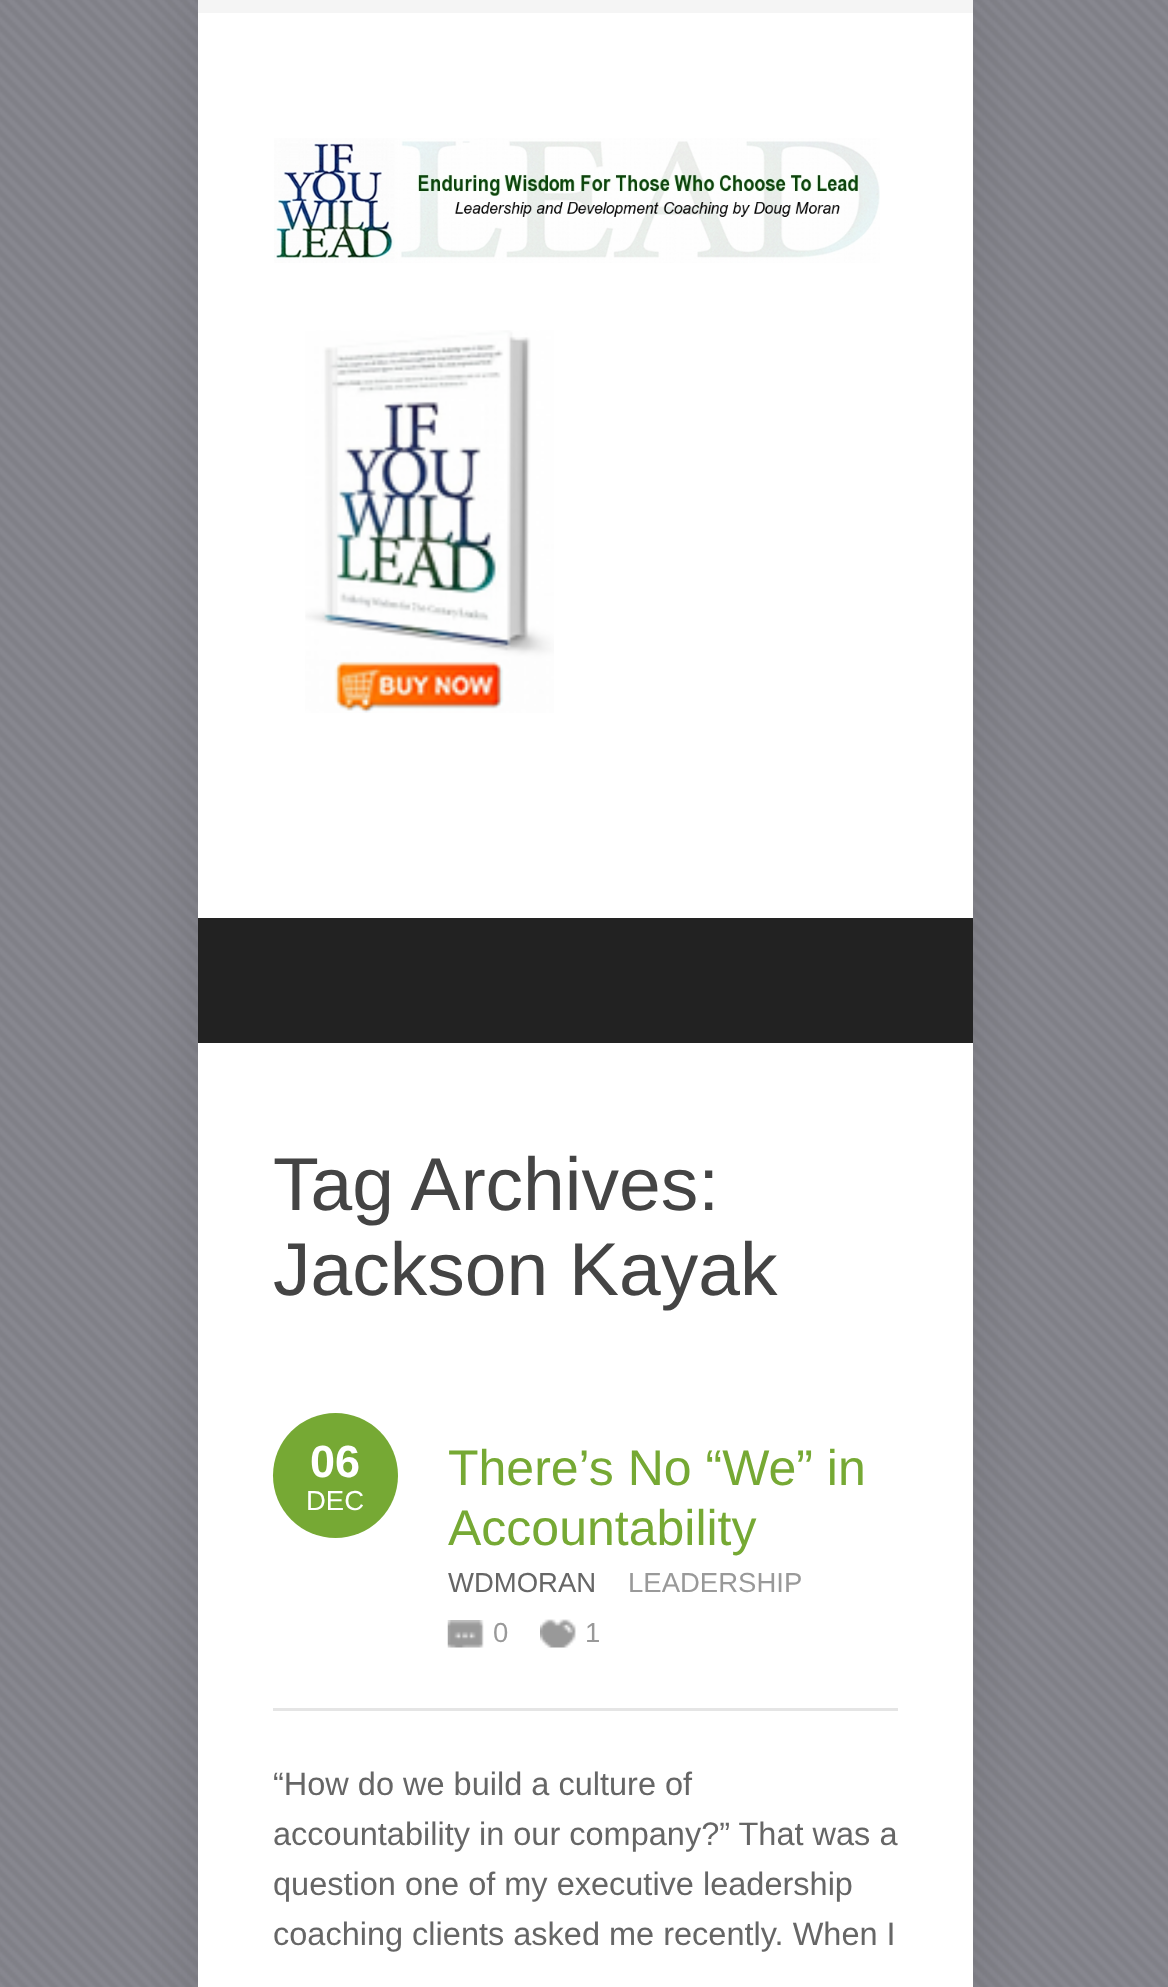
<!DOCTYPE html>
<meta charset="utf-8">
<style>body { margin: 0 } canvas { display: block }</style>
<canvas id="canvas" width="1168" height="1987"></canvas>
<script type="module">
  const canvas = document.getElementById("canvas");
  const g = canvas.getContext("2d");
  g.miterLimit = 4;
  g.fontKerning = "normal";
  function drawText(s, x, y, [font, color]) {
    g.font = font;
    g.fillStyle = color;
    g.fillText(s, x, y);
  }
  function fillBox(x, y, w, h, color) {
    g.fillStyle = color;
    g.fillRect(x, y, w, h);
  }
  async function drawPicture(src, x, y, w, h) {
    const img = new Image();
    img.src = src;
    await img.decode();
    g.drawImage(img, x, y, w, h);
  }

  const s1 = ["75px Liberation Sans", "#444444"];
  const s2 = ["bold 45px Liberation Sans", "#FFFFFF"];
  const s3 = ["27.5px Liberation Sans", "#FFFFFF"];
  const s4 = ["50px Liberation Sans", "#76A934"];
  const s5 = ["27.5px Liberation Sans", "#666666"];
  const s6 = ["27.5px Liberation Sans", "#999999"];
  const s7 = ["32.5px Liberation Sans", "#666666"];

  fillBox(0, 0, 1168, 1987, "#87878F");
  await drawPicture("pic1.png", 0, 0, 1168, 1987);
  g.fillStyle = "rgba(0, 0, 0, 0.09)";
  g.filter = "blur(25px)";
  g.beginPath();
  g.rect(198, 0, 775, 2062);
  g.fill();
  g.filter = "none";
  fillBox(198, 13, 775, 905, "#FFFFFF");
  fillBox(198, 0, 775, 13, "#F5F5F5");
  await drawPicture("pic2.png", 274, 138, 606, 125);
  await drawPicture("pic3.png", 305, 330, 249, 383);
  fillBox(198, 918, 775, 125, "#222222");
  fillBox(198, 1043, 775, 944, "#FFFFFF");
  drawText("Tag Archives:", 273, 1210, s1);
  drawText("Jackson Kayak", 273, 1295, s1);
  fillBox(273, 1708, 625, 3, "#E5E5E5");
  g.fillStyle = "#76A934";
  g.beginPath();
  g.arc(335.5, 1475.5, 62.5, 0, Math.PI * 2);
  g.fill();
  drawText("06", 310, 1477, s2);
  drawText("DEC", 306, 1510, s3);
  drawText("There’s No “We” in", 448, 1485, s4);
  drawText("Accountability", 448, 1545, s4);
  drawText("WDMORAN", 448, 1592, s5);
  drawText("LEADERSHIP", 628, 1592, s6);
  await drawPicture("pic4.png", 447, 1620, 37, 28);
  drawText("0", 493, 1642, s6);
  await drawPicture("pic5.png", 540, 1619, 36, 29);
  drawText("1", 585, 1642, s6);
  drawText("“How do we build a culture of", 273, 1795, s7);
  drawText("accountability in our company?” That was a", 273, 1845, s7);
  drawText("question one of my executive leadership", 273, 1895, s7);
  drawText("coaching clients asked me recently. When I", 273, 1945, s7);
</script>
